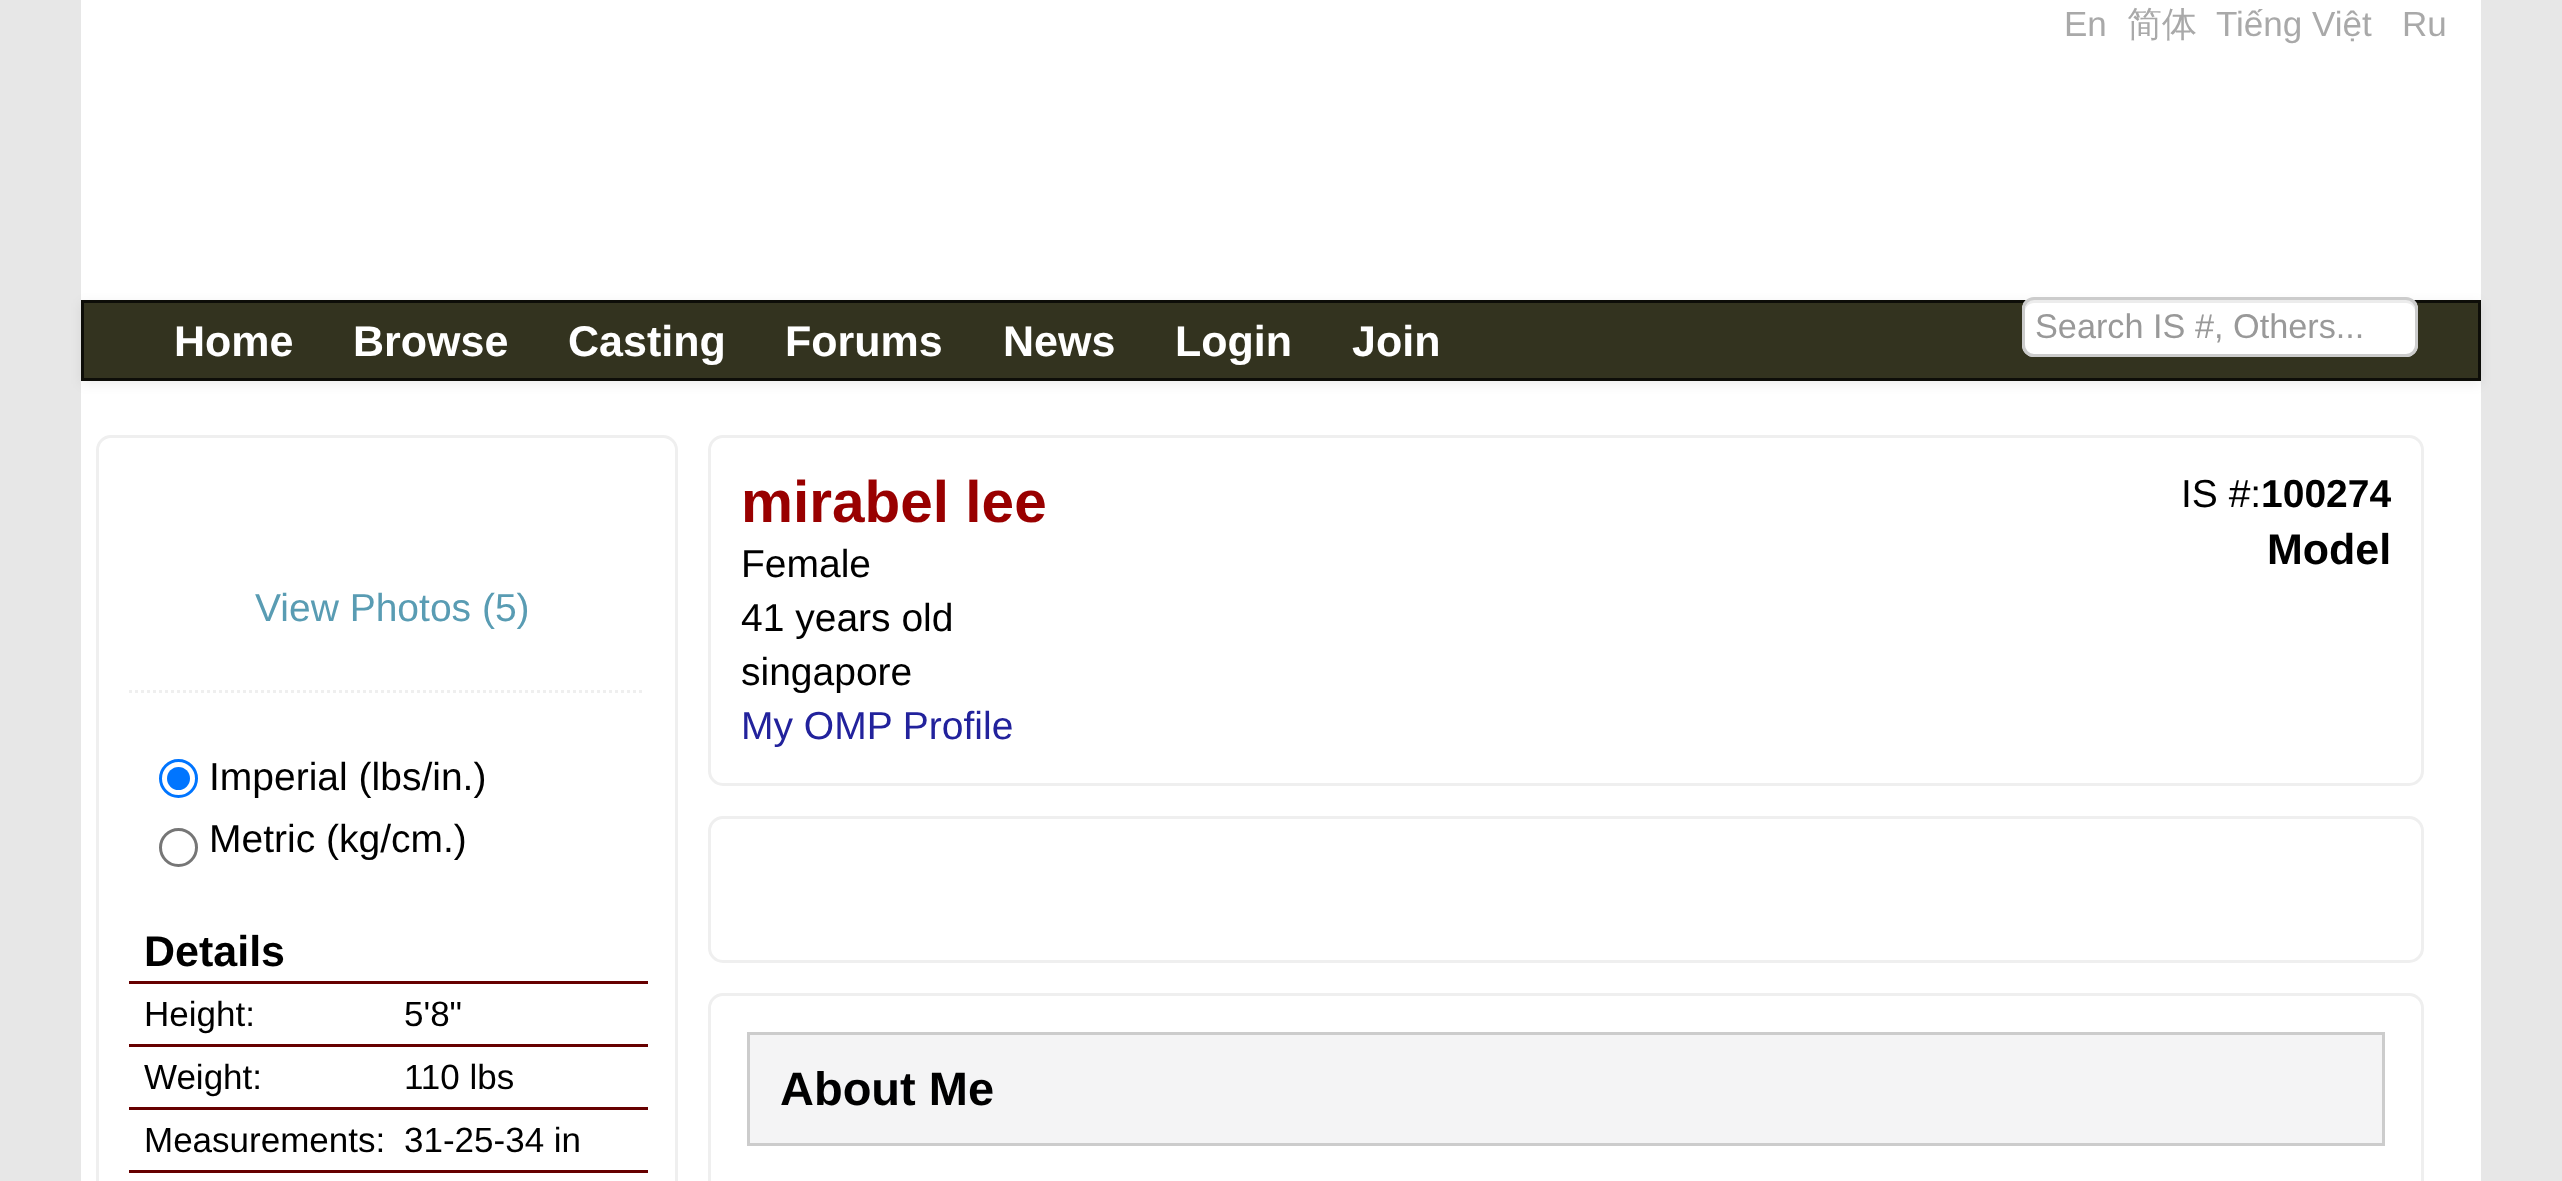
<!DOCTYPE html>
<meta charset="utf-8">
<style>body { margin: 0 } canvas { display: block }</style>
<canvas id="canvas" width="2562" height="1181"></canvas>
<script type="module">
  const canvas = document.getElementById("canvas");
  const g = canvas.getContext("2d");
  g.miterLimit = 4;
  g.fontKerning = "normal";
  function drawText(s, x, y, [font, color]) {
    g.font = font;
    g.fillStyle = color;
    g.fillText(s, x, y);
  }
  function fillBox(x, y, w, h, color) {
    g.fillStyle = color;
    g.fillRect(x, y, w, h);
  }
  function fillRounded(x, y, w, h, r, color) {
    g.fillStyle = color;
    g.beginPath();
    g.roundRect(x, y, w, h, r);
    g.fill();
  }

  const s1 = ["35px Liberation Sans", "#A9A9A9"];
  const s2 = ["500 35px WenQuanYi Zen Hei", "#A9A9A9"];
  const s3 = ["bold 43px Liberation Sans", "#FFFFFF"];
  const s4 = ["34.25px Liberation Sans", "#999999"];
  const s5 = ["39px Liberation Sans", "#599CB3"];
  const s6 = ["39px Liberation Sans", "#000000"];
  const s7 = ["bold 43px Liberation Sans", "#000000"];
  const s8 = ["35px Liberation Sans", "#000000"];
  const s9 = ["bold 58.5px Liberation Sans", "#990000"];
  const s10 = ["39px Liberation Sans", "#22229C"];
  const s11 = ["bold 39px Liberation Sans", "#000000"];
  const s12 = ["bold 47px Liberation Sans", "#000000"];

  fillBox(0, 0, 2562, 1181, "#E7E7E7");
  fillBox(81, 0, 2400, 1181, "#FFFFFF");
  drawText("En", 2064, 36, s1);
  drawText("简体", 2127, 36, s2);
  drawText("Tiếng Việt", 2216, 36, s1);
  drawText("Ru", 2402, 36, s1);
  g.fillStyle = "rgba(0, 0, 0, 0.07)";
  g.filter = "blur(6px)";
  g.beginPath();
  g.rect(81, 303, 2400, 81);
  g.fill();
  g.filter = "none";
  g.fillStyle = "#33331F";
  g.beginPath();
  g.rect(82.5, 301.5, 2397, 78);
  g.fill();
  g.strokeStyle = "#0D0D08";
  g.lineWidth = 3;
  g.stroke();
  drawText("Home", 174, 356, s3);
  drawText("Browse", 353, 356, s3);
  drawText("Casting", 568, 356, s3);
  drawText("Forums", 785, 356, s3);
  drawText("News", 1003, 356, s3);
  drawText("Login", 1175, 356, s3);
  drawText("Join", 1352, 356, s3);
  fillRounded(2022, 297, 396, 60, 12, "#FFFFFF");
  g.fillStyle = "#ECECEC";
  g.beginPath();
  g.moveTo(2034, 303);
  g.lineTo(2406, 303);
  g.bezierCurveTo(2411, 303, 2415, 307, 2415, 312);
  g.bezierCurveTo(2415, 307, 2414, 301, 2408, 300);
  g.lineTo(2032, 300);
  g.bezierCurveTo(2026, 301, 2025, 307, 2025, 312);
  g.bezierCurveTo(2025, 307, 2029, 303, 2034, 303);
  g.closePath();
  g.fill();
  g.beginPath();
  g.roundRect(2023.5, 298.5, 393, 57, 10.5);
  g.strokeStyle = "#CCCCCC";
  g.stroke();
  drawText("Search IS #, Others...", 2035, 338, s4);
  g.beginPath();
  g.roundRect(97.5, 436.5, 579, 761, 13.5);
  g.strokeStyle = "#EFEFEF";
  g.stroke();
  drawText("View Photos (5)", 255, 621, s5);
  g.beginPath();
  g.moveTo(129, 691.5);
  g.lineTo(645, 691.5);
  g.setLineDash([3, 3]);
  g.stroke();
  g.beginPath();
  g.arc(178.5, 778.5, 18, 0, Math.PI * 2);
  g.strokeStyle = "#0075FF";
  g.setLineDash([]);
  g.stroke();
  g.fillStyle = "#0075FF";
  g.beginPath();
  g.arc(178.5, 778.5, 11.5, 0, Math.PI * 2);
  g.fill();
  drawText("Imperial (lbs/in.)", 209, 790, s6);
  g.beginPath();
  g.arc(178.5, 847.5, 18, 0, Math.PI * 2);
  g.strokeStyle = "#767676";
  g.stroke();
  drawText("Metric (kg/cm.)", 209, 852, s6);
  fillBox(129, 981, 519, 3, "#660000");
  drawText("Details", 144, 966, s7);
  drawText("Height:", 144, 1026, s8);
  fillBox(129, 1044, 519, 3, "#660000");
  drawText("5'8\"", 404, 1026, s8);
  drawText("Weight:", 144, 1089, s8);
  fillBox(129, 1107, 519, 3, "#660000");
  drawText("110 lbs", 404, 1089, s8);
  drawText("Measurements:", 144, 1152, s8);
  fillBox(129, 1170, 519, 3, "#660000");
  drawText("31-25-34 in", 404, 1152, s8);
  g.beginPath();
  g.roundRect(709.5, 436.5, 1713, 348, 13.5);
  g.strokeStyle = "#EFEFEF";
  g.stroke();
  drawText("mirabel lee", 741, 522, s9);
  drawText("Female", 741, 577, s6);
  drawText("41 years old", 741, 631, s6);
  drawText("singapore", 741, 685, s6);
  drawText("My OMP Profile", 741, 739, s10);
  drawText("IS #:", 2181, 507, s6);
  drawText("100274", 2261, 507, s11);
  drawText("Model", 2267, 564, s7);
  g.beginPath();
  g.roundRect(709.5, 817.5, 1713, 144, 13.5);
  g.stroke();
  g.beginPath();
  g.roundRect(709.5, 994.5, 1713, 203, 13.5);
  g.stroke();
  g.fillStyle = "#F4F4F5";
  g.beginPath();
  g.rect(748.5, 1033.5, 1635, 111);
  g.fill();
  g.strokeStyle = "#CCCCCC";
  g.stroke();
  drawText("About Me", 780, 1105, s12);
</script>
